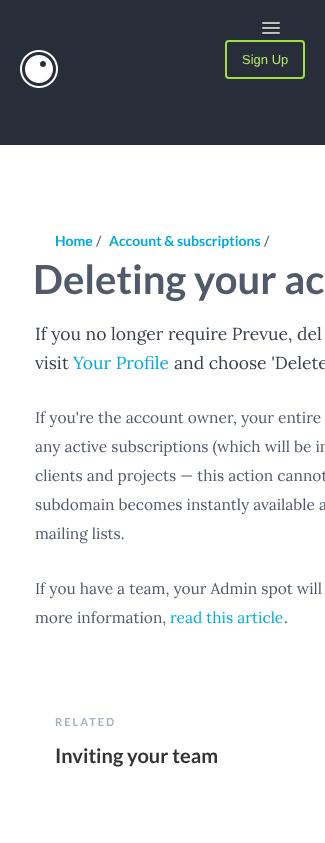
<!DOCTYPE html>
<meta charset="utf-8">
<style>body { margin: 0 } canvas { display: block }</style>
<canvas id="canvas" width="325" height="843"></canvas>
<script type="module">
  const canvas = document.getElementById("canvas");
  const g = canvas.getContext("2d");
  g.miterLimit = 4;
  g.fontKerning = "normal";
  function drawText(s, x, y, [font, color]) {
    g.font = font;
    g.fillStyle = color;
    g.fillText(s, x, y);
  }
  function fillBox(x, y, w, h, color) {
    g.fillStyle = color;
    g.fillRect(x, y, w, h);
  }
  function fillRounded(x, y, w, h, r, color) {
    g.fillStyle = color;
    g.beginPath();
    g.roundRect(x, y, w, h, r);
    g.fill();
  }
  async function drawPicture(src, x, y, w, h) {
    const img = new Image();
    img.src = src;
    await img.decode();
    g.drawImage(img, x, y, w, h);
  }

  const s1 = ["13px Liberation Sans", "#B4E46A"];
  const s2 = ["bold 14px Lato", "#00AADD"];
  const s3 = ["bold 14px Lato", "#667387"];
  const s4 = ["bold 40px Lato", "#505A6A"];
  const s5 = ["17.5px Lora", "#3A414D"];
  const s6 = ["17.5px Lora", "#00AADD"];
  const s7 = ["15.5px Lora", "#505A6A"];
  const s8 = ["15.5px Lora", "#00AADD"];
  const s9 = ["bold 11px Lato", "#A5B3BE"];
  const s10 = ["bold 20px Lato", "#333333"];

  fillBox(0, 0, 325, 843, "#FFFFFF");
  fillBox(0, 0, 325, 145, "#272E3A");
  g.fillStyle = "#1D232C";
  g.beginPath();
  g.moveTo(262, 23.5);
  g.bezierCurveTo(261, 25.5, 265.5, 25, 265.5, 25);
  g.lineTo(276.5, 25);
  g.bezierCurveTo(276.5, 25, 281, 25.5, 280, 23.5);
  g.bezierCurveTo(279, 24.5, 272.5, 24, 271, 24);
  g.bezierCurveTo(269.5, 24, 263, 24.5, 262, 23.5);
  g.closePath();
  g.fill();
  fillRounded(262, 22, 18, 2, 1, "#C0C0C0");
  g.fillStyle = "#1D232C";
  g.beginPath();
  g.moveTo(262, 28.5);
  g.bezierCurveTo(261, 30.5, 265.5, 30, 265.5, 30);
  g.lineTo(276.5, 30);
  g.bezierCurveTo(276.5, 30, 281, 30.5, 280, 28.5);
  g.bezierCurveTo(279, 29.5, 272.5, 29, 271, 29);
  g.bezierCurveTo(269.5, 29, 263, 29.5, 262, 28.5);
  g.closePath();
  g.fill();
  fillRounded(262, 27, 18, 2, 1, "#C0C0C0");
  g.fillStyle = "#1D232C";
  g.beginPath();
  g.moveTo(262, 33.5);
  g.bezierCurveTo(261, 35.5, 265.5, 35, 265.5, 35);
  g.lineTo(276.5, 35);
  g.bezierCurveTo(276.5, 35, 281, 35.5, 280, 33.5);
  g.bezierCurveTo(279, 34.5, 272.5, 34, 271, 34);
  g.bezierCurveTo(269.5, 34, 263, 34.5, 262, 33.5);
  g.closePath();
  g.fill();
  fillRounded(262, 32, 18, 2, 1, "#C0C0C0");
  await drawPicture("pic1.png", 20, 50, 38, 38);
  g.beginPath();
  g.roundRect(226, 41, 78, 37, 3);
  g.strokeStyle = "#A1DE41";
  g.lineWidth = 2;
  g.stroke();
  drawText("Sign Up", 242, 64, s1);
  drawText("Home", 55, 246, s2);
  drawText("/", 96, 246, s3);
  drawText("Account & subscriptions", 109, 246, s2);
  drawText("/", 264, 246, s3);
  drawText("Deleting your ac", 33, 294, s4);
  drawText("If you no longer require Prevue, del", 35, 340, s5);
  drawText("visit", 35, 369, s5);
  drawText("Your Profile", 73, 369, s6);
  drawText("and choose 'Delete", 174, 369, s5);
  drawText("If you're the account owner, your entire", 35, 423, s7);
  drawText("any active subscriptions (which will be in", 35, 452, s7);
  drawText("clients and projects — this action cannot", 35, 481, s7);
  drawText("subdomain becomes instantly available a", 35, 510, s7);
  drawText("mailing lists.", 35, 539, s7);
  drawText("If you have a team, your Admin spot will", 35, 594, s7);
  drawText("more information,", 35, 623, s7);
  drawText("read this article", 170, 623, s8);
  drawText(".", 284, 623, s7);
  g.letterSpacing = "2px";
  drawText("RELATED", 55, 726, s9);
  g.letterSpacing = "0px";
  drawText("Inviting your team", 55, 763, s10);
</script>
